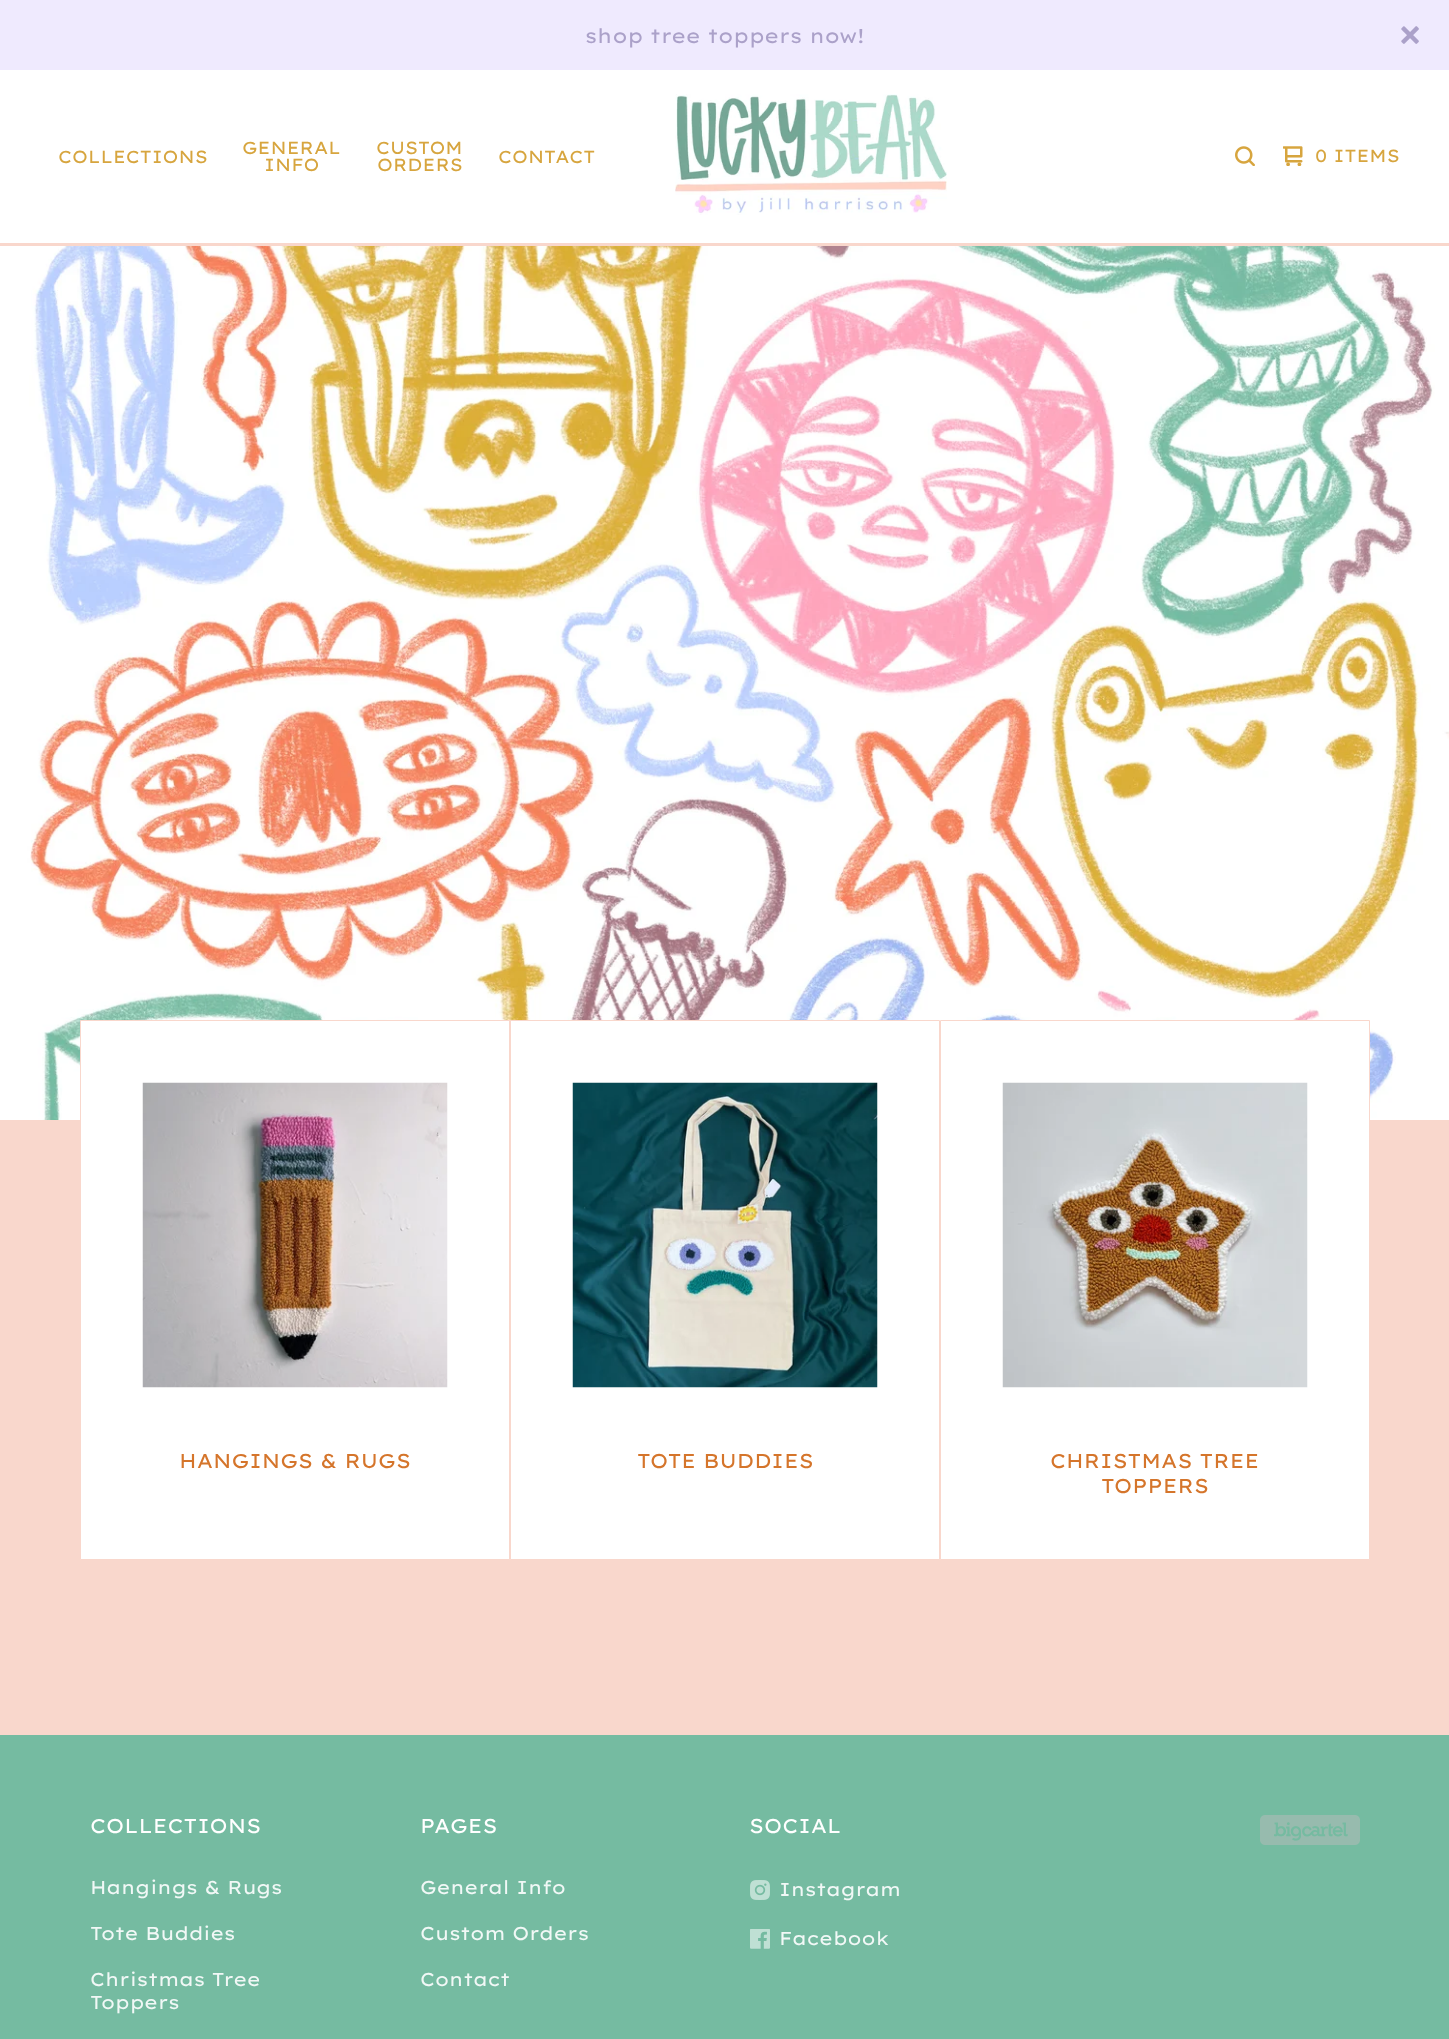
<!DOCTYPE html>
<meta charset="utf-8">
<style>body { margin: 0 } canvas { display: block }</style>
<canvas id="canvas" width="1449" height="2039"></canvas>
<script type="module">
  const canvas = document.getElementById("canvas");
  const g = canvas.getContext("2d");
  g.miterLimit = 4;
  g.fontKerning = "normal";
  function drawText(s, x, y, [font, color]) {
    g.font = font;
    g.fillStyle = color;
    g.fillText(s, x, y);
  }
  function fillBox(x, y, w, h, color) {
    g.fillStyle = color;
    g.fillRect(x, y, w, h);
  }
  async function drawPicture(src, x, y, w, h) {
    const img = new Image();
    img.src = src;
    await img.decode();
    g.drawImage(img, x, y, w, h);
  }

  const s1 = ["20px Lexend Exa", "#ABA1C9"];
  const s2 = ["17.5px Lexend Exa", "#D7A53E"];
  const s3 = ["20px Lexend Exa", "#D5752B"];
  const s4 = ["20px Lexend Exa", "#FFFFFF"];
  const s5 = ["18.75px Lexend Exa", "#F1F8F6"];

  fillBox(0, 0, 1449, 2039, "#F9D7CC");
  fillBox(0, 0, 1449, 70, "#EFEAFE");
  drawText("shop tree toppers now!", 585, 43, s1);
  await drawPicture("pic1.png", 1401, 26, 18, 18);
  fillBox(0, 70, 1449, 173, "#FFFFFF");
  drawText("COLLECTIONS", 58, 163, s2);
  drawText("GENERAL", 242, 154, s2);
  drawText("INFO", 264, 171, s2);
  drawText("CUSTOM", 376, 154, s2);
  drawText("ORDERS", 377, 171, s2);
  drawText("CONTACT", 498, 163, s2);
  await drawPicture("pic2.png", 675, 94, 272, 121);
  await drawPicture("pic3.png", 1235, 146, 20, 20);
  await drawPicture("pic4.png", 1283, 146, 20, 20);
  drawText("0 ITEMS", 1315, 162, s2);
  await drawPicture("pic5.png", 0, 246, 1449, 874);
  g.fillStyle = "#FFFFFF";
  g.beginPath();
  g.rect(80.5, 1020.5, 429, 539);
  g.fill();
  g.strokeStyle = "#F9D7CC";
  g.stroke();
  await drawPicture("pic6.png", 142, 1082, 306, 306);
  drawText("HANGINGS & RUGS", 179, 1468, s3);
  g.fillStyle = "#FFFFFF";
  g.beginPath();
  g.rect(510.5, 1020.5, 429, 539);
  g.fill();
  g.stroke();
  await drawPicture("pic7.png", 572, 1082, 306, 306);
  drawText("TOTE BUDDIES", 637, 1468, s3);
  g.fillStyle = "#FFFFFF";
  g.beginPath();
  g.rect(940.5, 1020.5, 429, 539);
  g.fill();
  g.stroke();
  await drawPicture("pic8.png", 1002, 1082, 306, 306);
  drawText("CHRISTMAS TREE", 1050, 1468, s3);
  drawText("TOPPERS", 1101, 1493, s3);
  fillBox(0, 1735, 1449, 304, "#75BBA1");
  drawText("COLLECTIONS", 90, 1833, s4);
  drawText("Hangings & Rugs", 90, 1894, s5);
  drawText("Tote Buddies", 90, 1940, s5);
  drawText("Christmas Tree", 90, 1986, s5);
  drawText("Toppers", 90, 2009, s5);
  drawText("PAGES", 420, 1833, s4);
  drawText("General Info", 420, 1894, s5);
  drawText("Custom Orders", 420, 1940, s5);
  drawText("Contact", 420, 1986, s5);
  drawText("SOCIAL", 749, 1833, s4);
  await drawPicture("pic9.png", 750, 1880, 20, 20);
  drawText("Instagram", 779, 1896, s5);
  await drawPicture("pic10.png", 750, 1929, 20, 20);
  drawText("Facebook", 779, 1945, s5);
  await drawPicture("pic11.png", 1260, 1815, 100, 30);
</script>
